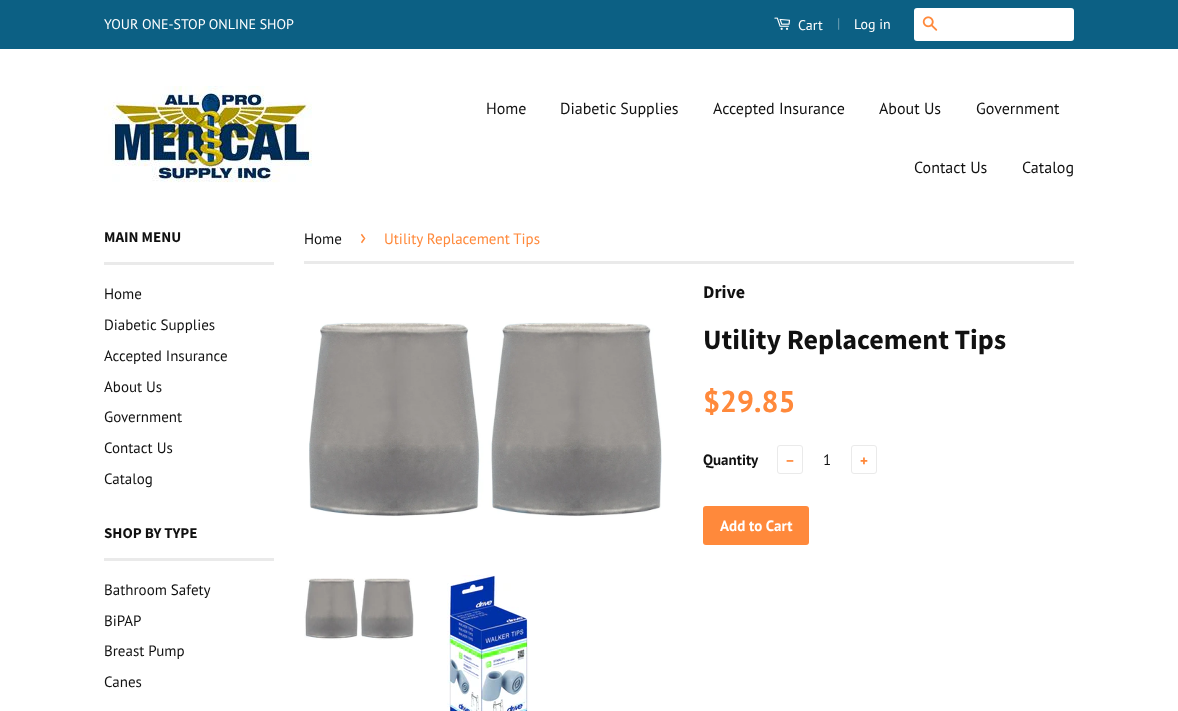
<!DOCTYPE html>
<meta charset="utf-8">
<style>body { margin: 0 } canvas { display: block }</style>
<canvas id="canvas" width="1178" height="711"></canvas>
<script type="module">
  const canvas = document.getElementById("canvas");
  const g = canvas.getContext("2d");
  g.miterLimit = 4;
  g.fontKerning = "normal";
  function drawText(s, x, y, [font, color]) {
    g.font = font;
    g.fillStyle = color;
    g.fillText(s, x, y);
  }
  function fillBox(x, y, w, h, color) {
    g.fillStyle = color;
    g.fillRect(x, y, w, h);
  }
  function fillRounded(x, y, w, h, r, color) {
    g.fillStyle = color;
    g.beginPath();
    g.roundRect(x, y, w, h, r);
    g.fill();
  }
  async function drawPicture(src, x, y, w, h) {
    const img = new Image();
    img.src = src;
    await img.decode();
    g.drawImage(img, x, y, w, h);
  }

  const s1 = ["14px PT Sans", "#FFFFFF"];
  const s2 = ["14px PT Sans", "#6DA0B5"];
  const s3 = ["16px PT Sans", "#111111"];
  const s4 = ["bold 15px Source Sans Pro", "#111111"];
  const s5 = ["15px PT Sans", "#111111"];
  const s6 = ["21px PT Sans", "#FF893B"];
  const s7 = ["15px PT Sans", "#FF893B"];
  const s8 = ["bold 18px Source Sans Pro", "#111111"];
  const s9 = ["bold 28px Source Sans Pro", "#111111"];
  const s10 = ["bold 30px PT Sans", "#FF893B"];
  const s11 = ["bold 15px PT Sans", "#111111"];
  const s12 = ["bold 15px PT Sans", "#FF893B"];
  const s13 = ["bold 15px PT Sans", "#FFFFFF"];

  fillBox(0, 0, 1178, 711, "#FFFFFF");
  fillBox(0, 0, 1178, 49, "#0C6084");
  drawText("YOUR ONE-STOP ONLINE SHOP", 104, 29, s1);
  await drawPicture("pic1.png", 774, 17, 17, 13);
  drawText("Cart", 798, 30, s1);
  drawText("|", 837, 28, s2);
  drawText("Log in", 854, 29, s1);
  fillRounded(914, 8, 160, 33, 3, "#FFFFFF");
  await drawPicture("pic2.png", 922, 16, 16, 15);
  await drawPicture("pic3.png", 104, 86, 208, 97);
  drawText("Home", 486, 114, s3);
  drawText("Diabetic Supplies", 560, 114, s3);
  drawText("Accepted Insurance", 713, 114, s3);
  drawText("About Us", 879, 114, s3);
  drawText("Government", 976, 114, s3);
  drawText("Contact Us", 914, 173, s3);
  drawText("Catalog", 1022, 173, s3);
  fillBox(104, 262, 170, 3, "#EAEAEA");
  drawText("MAIN MENU", 104, 242, s4);
  drawText("Home", 104, 299, s5);
  drawText("Diabetic Supplies", 104, 330, s5);
  drawText("Accepted Insurance", 104, 361, s5);
  drawText("About Us", 104, 392, s5);
  drawText("Government", 104, 422, s5);
  drawText("Contact Us", 104, 453, s5);
  drawText("Catalog", 104, 484, s5);
  fillBox(104, 558, 170, 3, "#EAEAEA");
  drawText("SHOP BY TYPE", 104, 538, s4);
  drawText("Bathroom Safety", 104, 595, s5);
  drawText("BiPAP", 104, 626, s5);
  drawText("Breast Pump", 104, 656, s5);
  drawText("Canes", 104, 687, s5);
  fillBox(304, 261, 770, 3, "#EAEAEA");
  drawText("Home", 304, 244, s5);
  drawText("›", 360, 244, s6);
  drawText("Utility Replacement Tips", 384, 244, s7);
  await drawPicture("pic4.png", 309, 322, 353, 195);
  drawText("Drive", 703, 298, s8);
  drawText("Utility Replacement Tips", 703, 349, s9);
  drawText("$29.85", 703, 412, s10);
  drawText("Quantity", 703, 465, s11);
  g.beginPath();
  g.roundRect(777.5, 445.5, 25, 28, 2.5);
  g.strokeStyle = "#EAEAEA";
  g.stroke();
  drawText("−", 786, 466, s12);
  drawText("1", 823, 465, s5);
  g.beginPath();
  g.roundRect(851.5, 445.5, 25, 28, 2.5);
  g.stroke();
  drawText("+", 860, 466, s12);
  fillRounded(703, 506, 106, 39, 3, "#FF893B");
  drawText("Add to Cart", 720, 531, s13);
  await drawPicture("pic5.png", 304, 578, 110, 62);
  await drawPicture("pic6.png", 447, 575, 82, 136);
</script>
